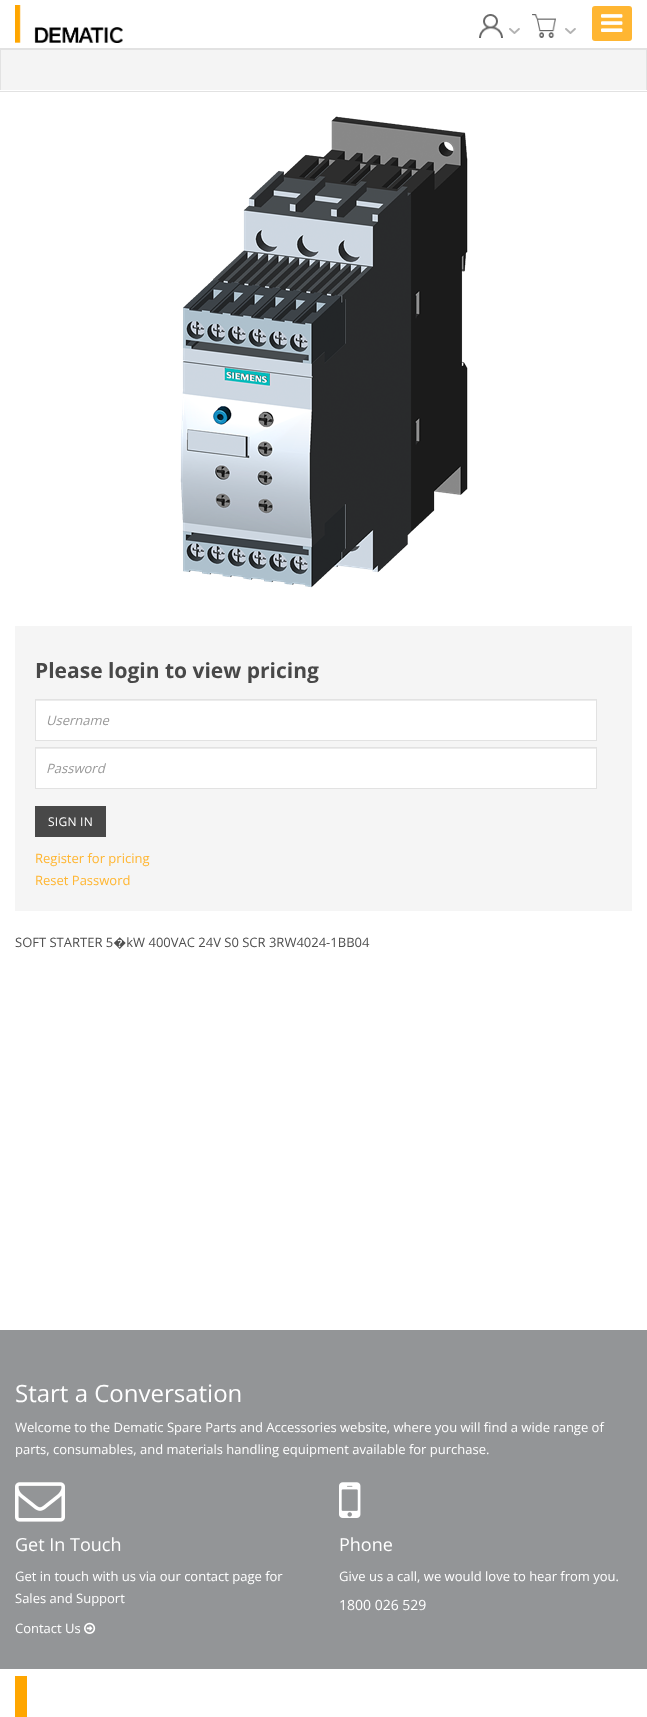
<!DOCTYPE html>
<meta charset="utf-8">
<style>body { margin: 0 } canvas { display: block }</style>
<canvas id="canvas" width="647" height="1717"></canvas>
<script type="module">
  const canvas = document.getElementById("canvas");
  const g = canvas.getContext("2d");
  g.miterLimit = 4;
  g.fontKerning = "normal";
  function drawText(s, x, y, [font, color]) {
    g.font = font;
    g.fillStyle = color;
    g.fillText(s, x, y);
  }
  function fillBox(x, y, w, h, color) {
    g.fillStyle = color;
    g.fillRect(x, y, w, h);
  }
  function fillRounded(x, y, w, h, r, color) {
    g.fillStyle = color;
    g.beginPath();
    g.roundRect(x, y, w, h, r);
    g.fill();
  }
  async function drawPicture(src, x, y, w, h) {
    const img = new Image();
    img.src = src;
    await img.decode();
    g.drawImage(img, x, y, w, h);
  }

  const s1 = ["bold 21px Open Sans", "#484848"];
  const s2 = ["italic 13px Open Sans", "#999999"];
  const s3 = ["12px Open Sans", "#FFFFFF"];
  const s4 = ["13px Open Sans", "#FFB632"];
  const s5 = ["13px Open Sans", "#4F4F4F"];
  const s6 = ["24px Open Sans", "#FFFFFF"];
  const s7 = ["13px Open Sans", "#FFFFFF"];
  const s8 = ["18px Open Sans", "#FFFFFF"];
  const s9 = ["14px Open Sans", "#FFFFFF"];

  fillBox(0, 0, 647, 1717, "#FFFFFF");
  fillBox(0, 91, 647, 1, "#E2E2E2");
  await drawPicture("pic1.png", 15, 5, 108, 38);
  await drawPicture("pic2.png", 479, 14, 24, 24);
  await drawPicture("pic3.png", 509, 28, 11, 6);
  await drawPicture("pic4.png", 532, 14, 24, 24);
  await drawPicture("pic3.png", 565, 28, 11, 6);
  fillBox(1, 50, 645, 40, "#F4F4F4");
  fillBox(1, 49, 645, 1, "#E2E2E2");
  fillBox(0, 48, 647, 1, "#E2E2E2");
  fillBox(646, 48, 1, 42, "#E2E2E2");
  fillBox(0, 48, 1, 42, "#E2E2E2");
  fillRounded(592, 6, 40, 35, 3, "#FFB632");
  await drawPicture("pic5.png", 601, 14, 22, 18);
  await drawPicture("pic6.png", 180, 116, 288, 472);
  fillBox(15, 626, 617, 285, "#F5F5F5");
  drawText("Please login to view pricing", 35, 678, s1);
  fillBox(36, 701, 560, 39, "#FFFFFF");
  fillBox(36, 700, 560, 1, "#ECECEC");
  g.strokeStyle = "#E2E2E2";
  g.strokeRect(35.5, 699.5, 561, 41);
  drawText("Username", 46, 725, s2);
  fillBox(36, 749, 560, 39, "#FFFFFF");
  fillBox(36, 748, 560, 1, "#ECECEC");
  g.strokeRect(35.5, 747.5, 561, 41);
  drawText("Password", 46, 773, s2);
  fillBox(35, 806, 71, 31, "#484848");
  g.letterSpacing = "0.25px";
  drawText("SIGN IN", 48, 826, s3);
  g.letterSpacing = "0px";
  drawText("Register for pricing", 35, 863, s4);
  drawText("Reset Password", 35, 885, s4);
  drawText("SOFT STARTER 5�kW 400VAC 24V S0 SCR 3RW4024-1BB04", 15, 947, s5);
  fillBox(0, 1330, 647, 339, "#939597");
  drawText("Start a Conversation", 15, 1402, s6);
  drawText("Welcome to the Dematic Spare Parts and Accessories website, where you will find a wide range of", 15, 1432, s7);
  drawText("parts, consumables, and materials handling equipment available for purchase.", 15, 1454, s7);
  await drawPicture("pic7.png", 15, 1482, 50, 40);
  drawText("Get In Touch", 15, 1551, s8);
  drawText("Get in touch with us via our contact page for", 15, 1581, s7);
  drawText("Sales and Support", 15, 1603, s7);
  drawText("Contact Us", 15, 1633, s7);
  await drawPicture("pic8.png", 84, 1622, 12, 12);
  await drawPicture("pic9.png", 339, 1482, 22, 36);
  drawText("Phone", 339, 1551, s8);
  drawText("Give us a call, we would love to hear from you.", 339, 1581, s7);
  drawText("1800 026 529", 339, 1610, s9);
  fillBox(15, 1676, 12, 41, "#FFA600");
</script>
